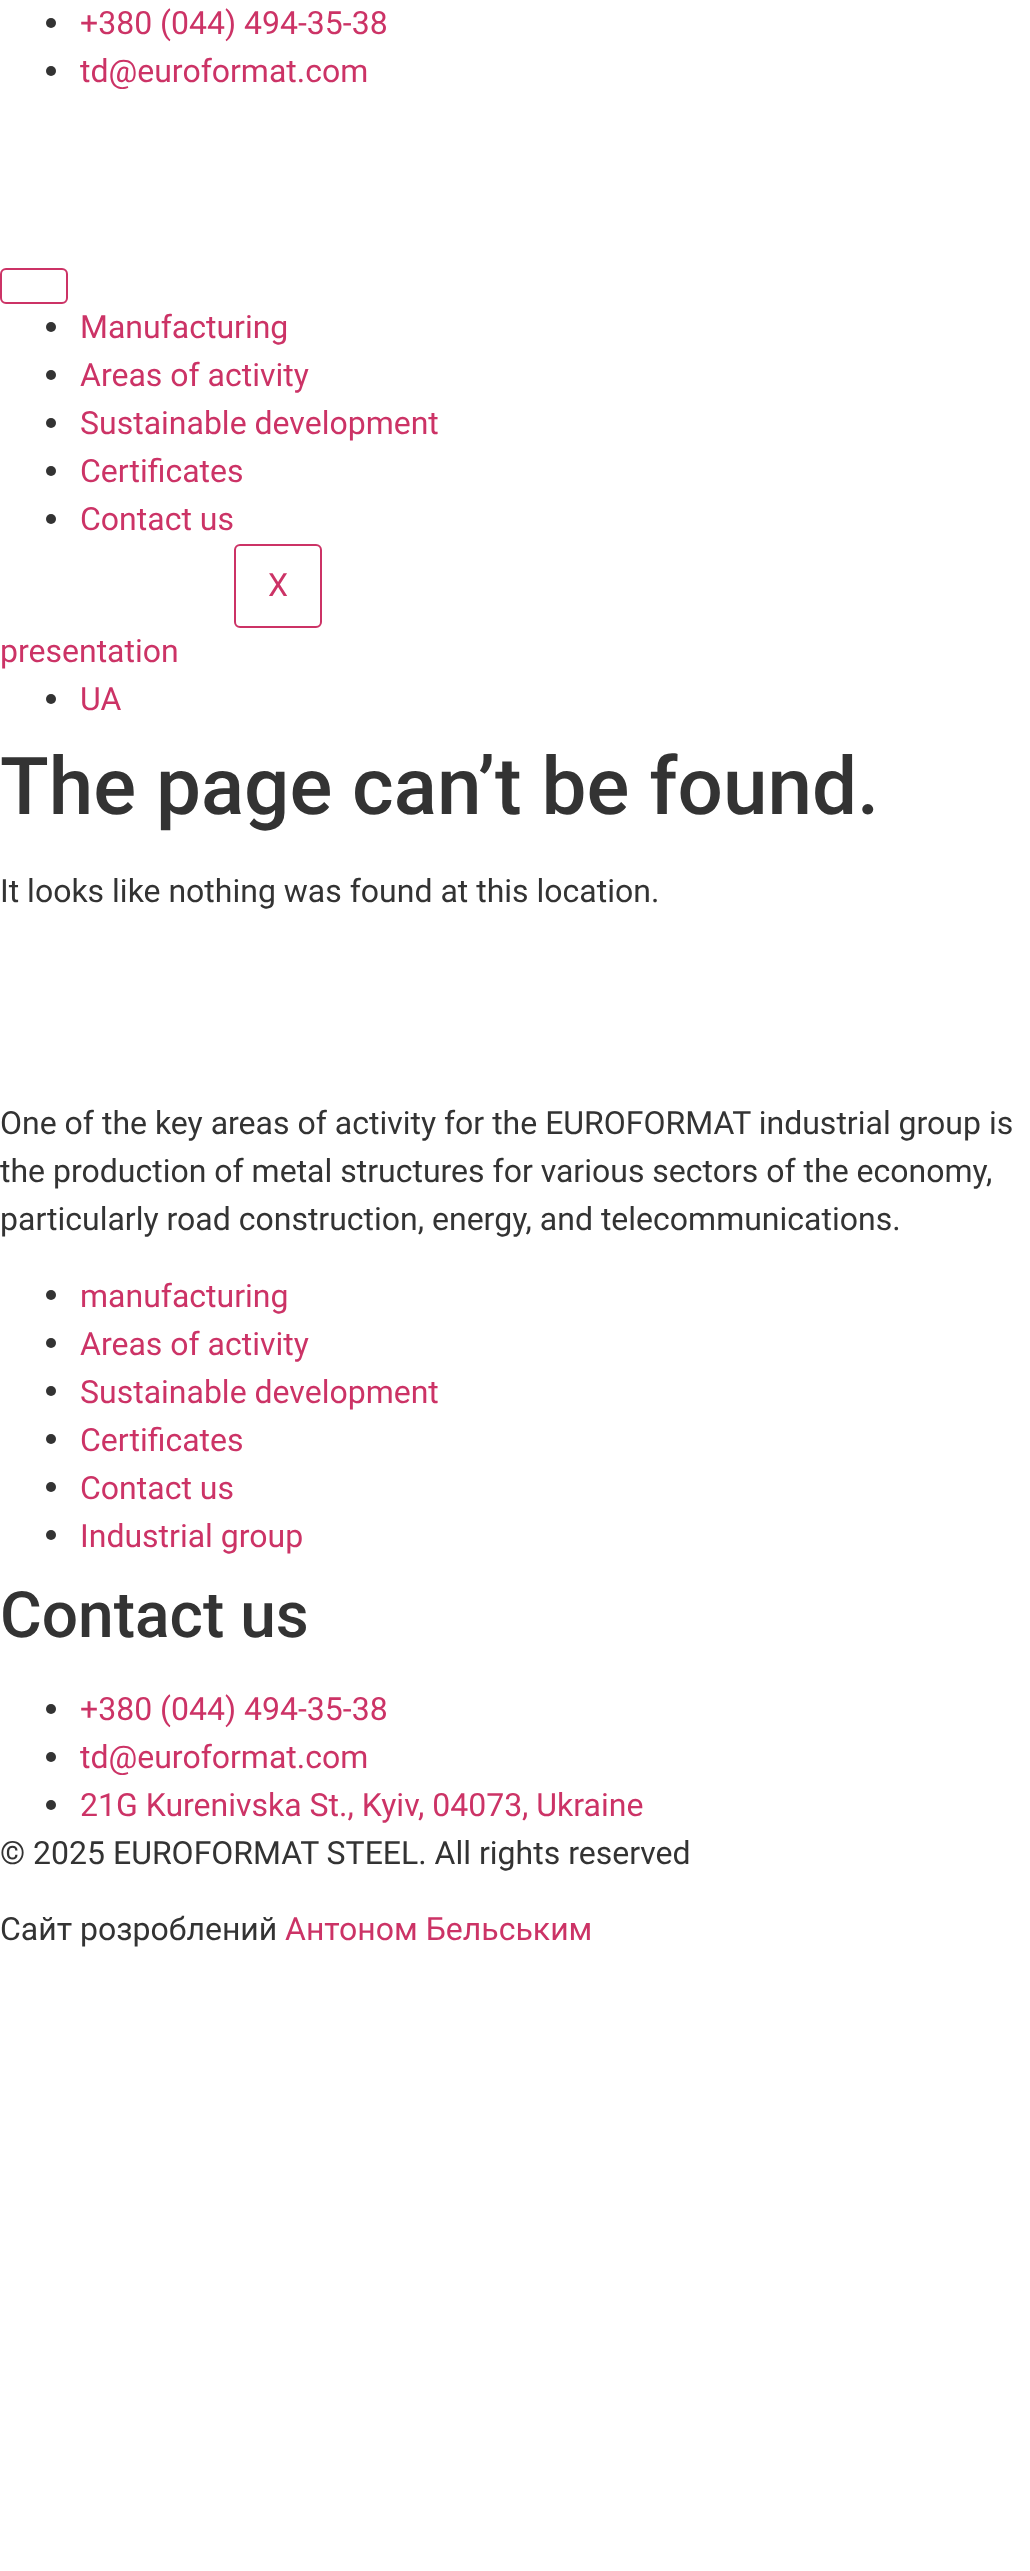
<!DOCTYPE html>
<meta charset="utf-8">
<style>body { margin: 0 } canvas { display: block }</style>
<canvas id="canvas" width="1030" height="2571"></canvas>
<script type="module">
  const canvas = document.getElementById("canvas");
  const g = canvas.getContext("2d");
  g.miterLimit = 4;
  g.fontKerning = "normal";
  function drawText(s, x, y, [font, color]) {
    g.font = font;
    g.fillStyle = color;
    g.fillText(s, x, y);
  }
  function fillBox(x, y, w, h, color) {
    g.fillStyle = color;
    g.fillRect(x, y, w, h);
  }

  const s1 = ["32px Roboto", "#CC3366"];
  const s2 = ["500 80px Roboto", "#333333"];
  const s3 = ["32px Roboto", "#333333"];
  const s4 = ["500 64px Roboto", "#333333"];

  fillBox(0, 0, 1030, 2571, "#FFFFFF");
  g.fillStyle = "#333333";
  g.beginPath();
  g.arc(51, 23, 5, 0, Math.PI * 2);
  g.fill();
  drawText("+380 (044) 494-35-38", 80, 34, s1);
  g.fillStyle = "#333333";
  g.beginPath();
  g.arc(51, 71, 5, 0, Math.PI * 2);
  g.fill();
  drawText("td@euroformat.com", 80, 82, s1);
  g.beginPath();
  g.roundRect(1, 269, 66, 34, 5);
  g.strokeStyle = "#CC3366";
  g.lineWidth = 2;
  g.stroke();
  g.fillStyle = "#333333";
  g.beginPath();
  g.arc(51, 327, 5, 0, Math.PI * 2);
  g.fill();
  drawText("Manufacturing", 80, 338, s1);
  g.fillStyle = "#333333";
  g.beginPath();
  g.arc(51, 375, 5, 0, Math.PI * 2);
  g.fill();
  drawText("Areas of activity", 80, 386, s1);
  g.fillStyle = "#333333";
  g.beginPath();
  g.arc(51, 423, 5, 0, Math.PI * 2);
  g.fill();
  drawText("Sustainable development", 80, 434, s1);
  g.fillStyle = "#333333";
  g.beginPath();
  g.arc(51, 471, 5, 0, Math.PI * 2);
  g.fill();
  drawText("Certificates", 80, 482, s1);
  g.fillStyle = "#333333";
  g.beginPath();
  g.arc(51, 519, 5, 0, Math.PI * 2);
  g.fill();
  drawText("Contact us", 80, 530, s1);
  g.beginPath();
  g.roundRect(235, 545, 86, 82, 5);
  g.stroke();
  drawText("X", 268, 596, s1);
  drawText("presentation", 0, 662, s1);
  g.fillStyle = "#333333";
  g.beginPath();
  g.arc(51, 699, 5, 0, Math.PI * 2);
  g.fill();
  drawText("UA", 80, 710, s1);
  drawText("The page can’t be found.", 0, 814, s2);
  drawText("It looks like nothing was found at this location.", 0, 902, s3);
  drawText("One of the key areas of activity for the EUROFORMAT industrial group is", 0, 1134, s3);
  drawText("the production of metal structures for various sectors of the economy,", 0, 1182, s3);
  drawText("particularly road construction, energy, and telecommunications.", 0, 1230, s3);
  g.beginPath();
  g.arc(51, 1295, 5, 0, Math.PI * 2);
  g.fill();
  drawText("manufacturing", 80, 1307, s1);
  g.fillStyle = "#333333";
  g.beginPath();
  g.arc(51, 1343, 5, 0, Math.PI * 2);
  g.fill();
  drawText("Areas of activity", 80, 1355, s1);
  g.fillStyle = "#333333";
  g.beginPath();
  g.arc(51, 1391, 5, 0, Math.PI * 2);
  g.fill();
  drawText("Sustainable development", 80, 1403, s1);
  g.fillStyle = "#333333";
  g.beginPath();
  g.arc(51, 1439, 5, 0, Math.PI * 2);
  g.fill();
  drawText("Certificates", 80, 1451, s1);
  g.fillStyle = "#333333";
  g.beginPath();
  g.arc(51, 1487, 5, 0, Math.PI * 2);
  g.fill();
  drawText("Contact us", 80, 1499, s1);
  g.fillStyle = "#333333";
  g.beginPath();
  g.arc(51, 1535, 5, 0, Math.PI * 2);
  g.fill();
  drawText("Industrial group", 80, 1547, s1);
  drawText("Contact us", 0, 1637, s4);
  g.beginPath();
  g.arc(51, 1709, 5, 0, Math.PI * 2);
  g.fill();
  drawText("+380 (044) 494-35-38", 80, 1720, s1);
  g.fillStyle = "#333333";
  g.beginPath();
  g.arc(51, 1757, 5, 0, Math.PI * 2);
  g.fill();
  drawText("td@euroformat.com", 80, 1768, s1);
  g.fillStyle = "#333333";
  g.beginPath();
  g.arc(51, 1805, 5, 0, Math.PI * 2);
  g.fill();
  drawText("21G Kurenivska St., Kyiv, 04073, Ukraine", 80, 1816, s1);
  drawText("© 2025 EUROFORMAT STEEL. All rights reserved", 0, 1864, s3);
  drawText("Сайт розроблений", 0, 1940, s3);
  drawText("Антоном Бельським", 285, 1940, s1);
</script>
